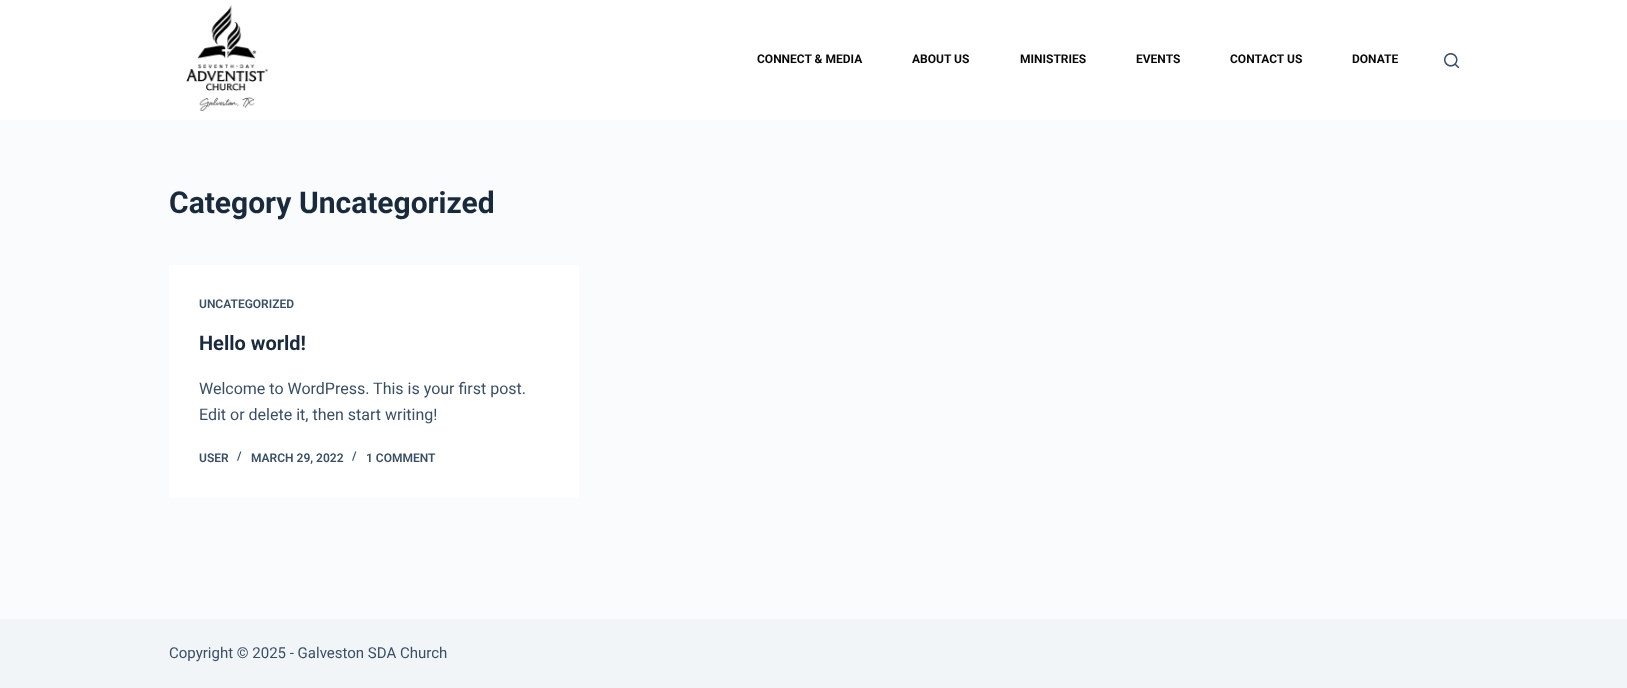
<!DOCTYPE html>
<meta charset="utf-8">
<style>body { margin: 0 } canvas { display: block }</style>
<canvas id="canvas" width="1627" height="688"></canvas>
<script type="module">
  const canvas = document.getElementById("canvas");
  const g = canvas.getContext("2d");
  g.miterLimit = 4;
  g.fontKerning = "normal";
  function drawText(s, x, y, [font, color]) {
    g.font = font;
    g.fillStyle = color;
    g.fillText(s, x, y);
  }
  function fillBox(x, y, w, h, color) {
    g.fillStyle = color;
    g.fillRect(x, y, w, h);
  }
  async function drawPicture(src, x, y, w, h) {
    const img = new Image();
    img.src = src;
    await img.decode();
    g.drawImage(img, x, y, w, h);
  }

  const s1 = ["bold 12px Roboto", "#080808"];
  const s2 = ["bold 30px Roboto", "#192A3D"];
  const s3 = ["600 12px Roboto", "#3A4F66"];
  const s4 = ["bold 20px Roboto", "#192A3D"];
  const s5 = ["16px Roboto", "#3A4F66"];
  const s6 = ["15px Roboto", "#3A4F66"];

  fillBox(0, 0, 1627, 688, "#FAFBFC");
  fillBox(0, 0, 1627, 120, "#FFFFFF");
  await drawPicture("pic1.png", 186, 5, 82, 106);
  drawText("CONNECT & MEDIA", 757, 63, s1);
  drawText("ABOUT US", 912, 63, s1);
  drawText("MINISTRIES", 1020, 63, s1);
  drawText("EVENTS", 1136, 63, s1);
  drawText("CONTACT US", 1230, 63, s1);
  drawText("DONATE", 1352, 63, s1);
  await drawPicture("pic2.png", 1444, 53, 15, 15);
  drawText("Category Uncategorized", 169, 213, s2);
  fillBox(169, 265, 410, 233, "#FFFFFF");
  drawText("UNCATEGORIZED", 199, 308, s3);
  drawText("Hello world!", 199, 350, s4);
  drawText("Welcome to WordPress. This is your first post.", 199, 394, s5);
  drawText("Edit or delete it, then start writing!", 199, 420, s5);
  drawText("USER", 199, 462, s3);
  drawText("/", 237, 460, s3);
  drawText("MARCH 29, 2022", 251, 462, s3);
  drawText("/", 352, 460, s3);
  drawText("1 COMMENT", 366, 462, s3);
  fillBox(0, 619, 1627, 69, "#F2F5F7");
  drawText("Copyright © 2025 - Galveston SDA Church", 169, 658, s6);
</script>
